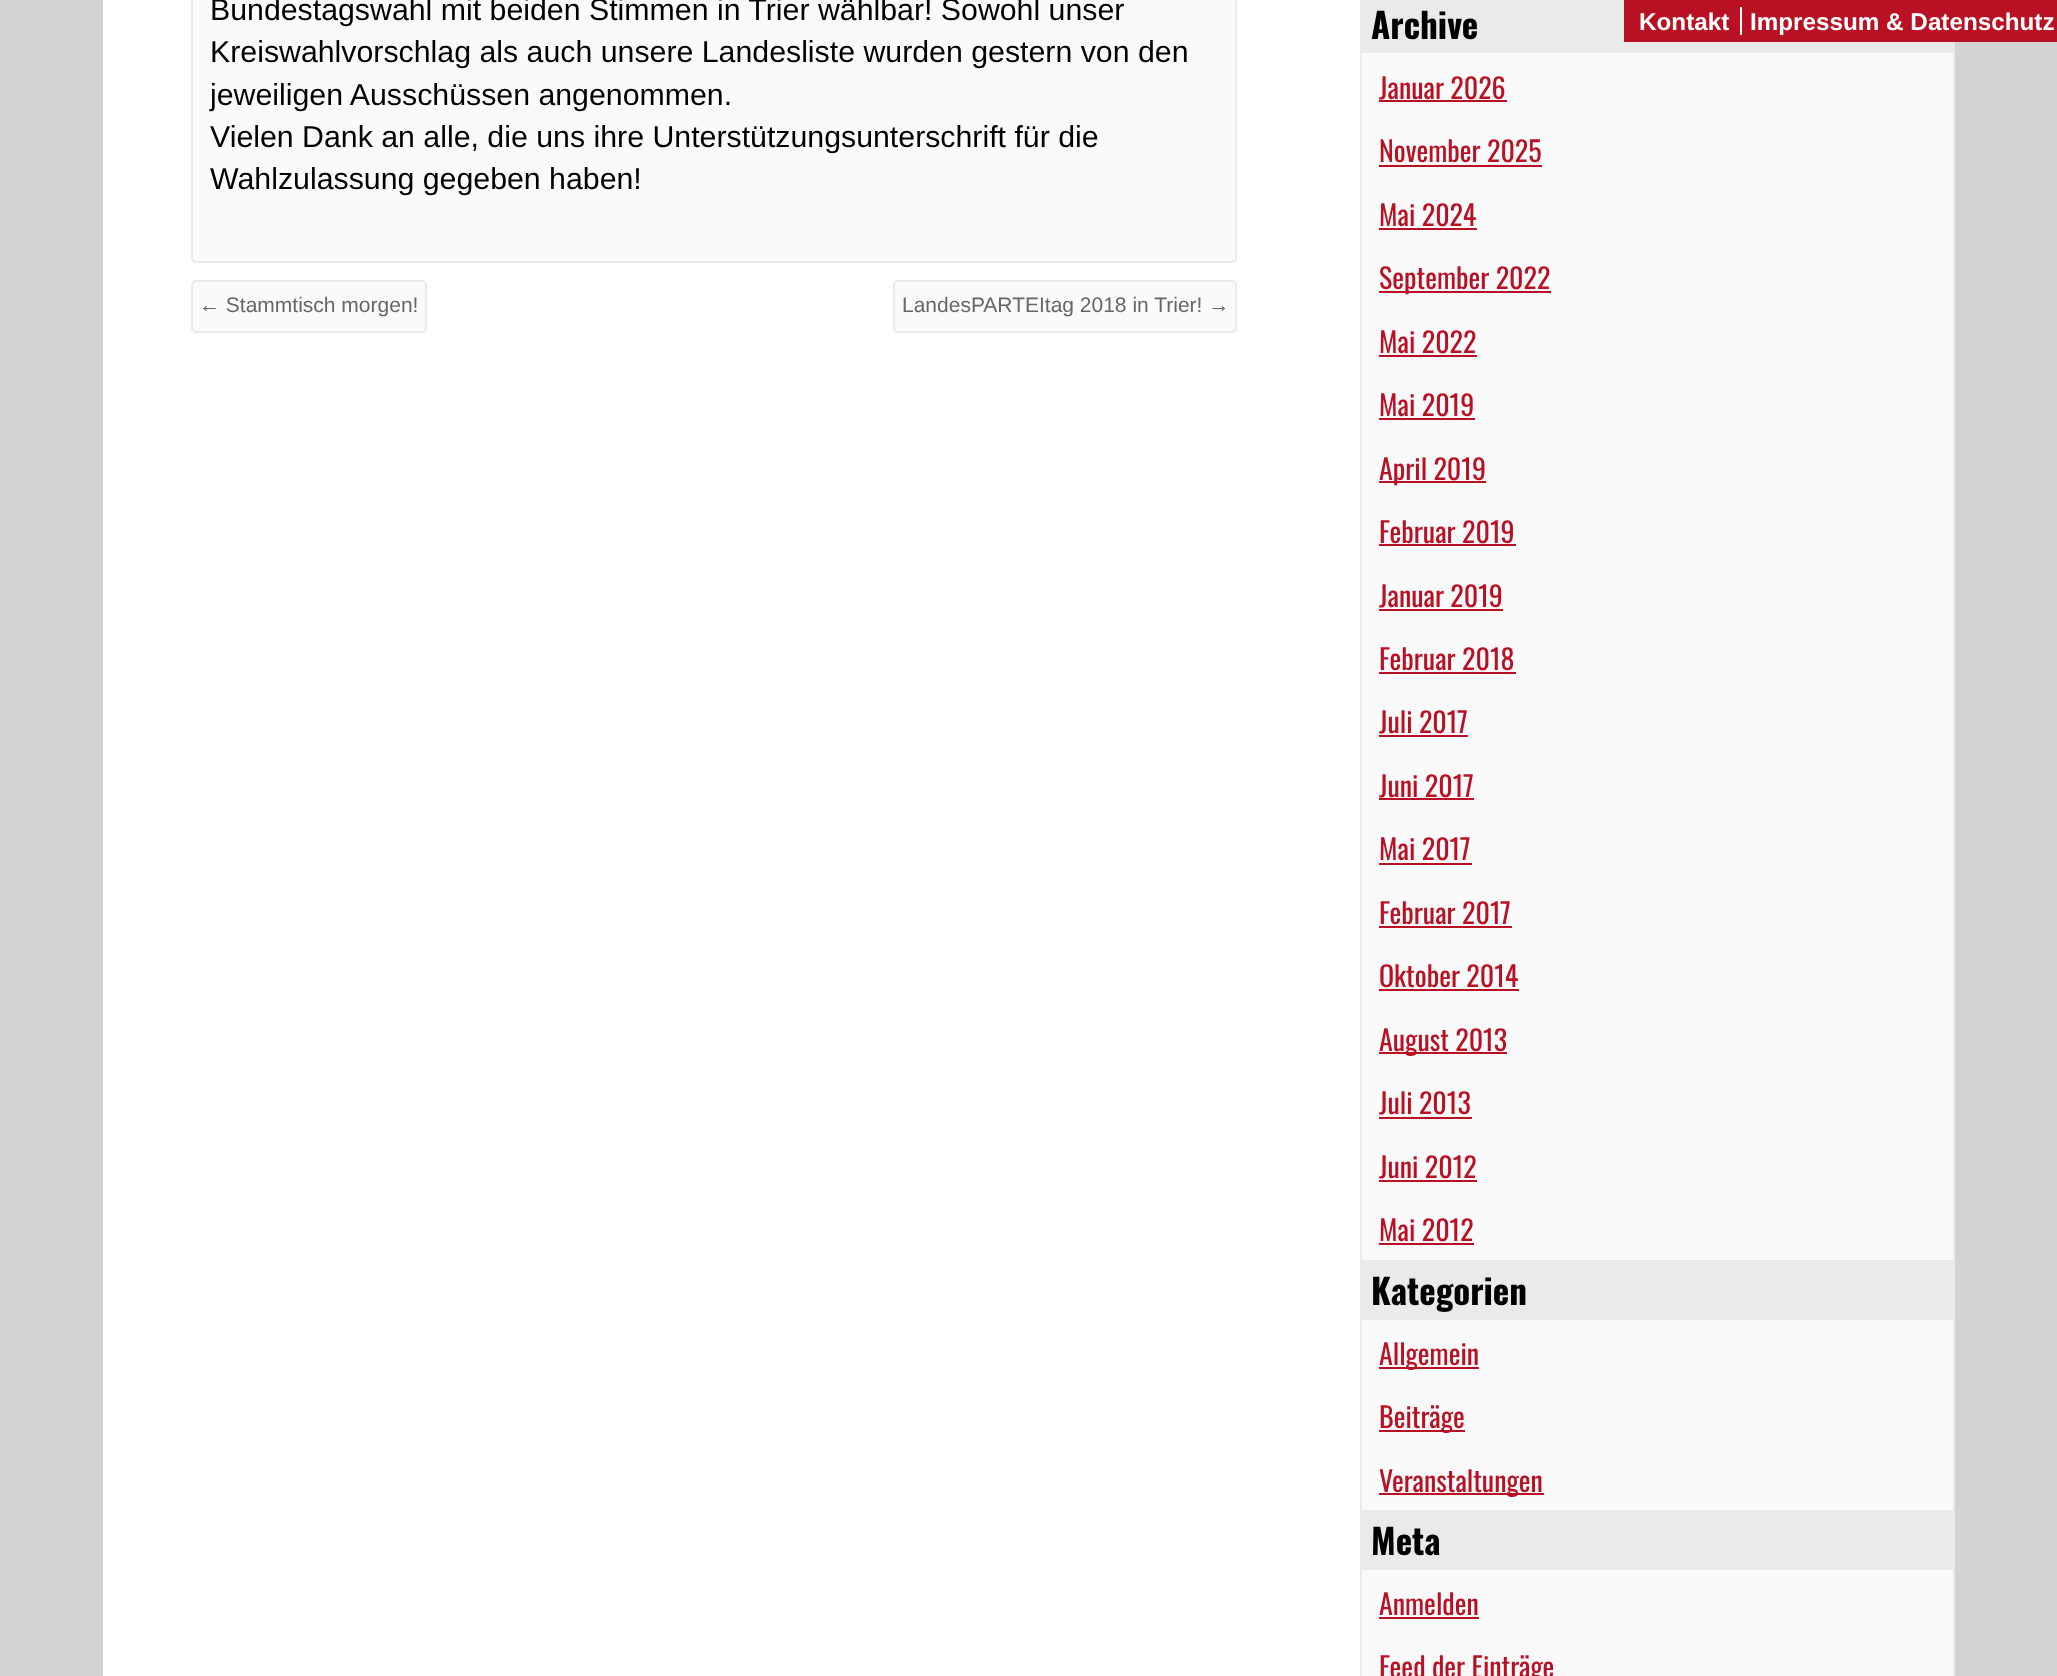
<!DOCTYPE html>
<meta charset="utf-8">
<style>body { margin: 0 } canvas { display: block }</style>
<canvas id="canvas" width="2057" height="1676"></canvas>
<script type="module">
  const canvas = document.getElementById("canvas");
  const g = canvas.getContext("2d");
  g.miterLimit = 4;
  g.fontKerning = "normal";
  function drawText(s, x, y, [font, color]) {
    g.font = font;
    g.fillStyle = color;
    g.fillText(s, x, y);
  }
  function fillBox(x, y, w, h, color) {
    g.fillStyle = color;
    g.fillRect(x, y, w, h);
  }

  const s1 = ["30.3px Liberation Sans", "#000000"];
  const s2 = ["21px Liberation Sans", "#666666"];
  const s3 = ["bold 35px Oswald", "#000000"];
  const s4 = ["28px Oswald", "#B91023"];
  const s5 = ["bold 24.25px Liberation Sans", "#FFFFFF"];

  fillBox(0, 0, 2057, 1676, "#D3D3D3");
  fillBox(103, 0, 1257, 1676, "#FFFFFF");
  g.fillStyle = "#FAFAFA";
  g.beginPath();
  g.roundRect(192, -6, 1044, 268, 4);
  g.fill();
  g.strokeStyle = "#EAEAEA";
  g.lineWidth = 2;
  g.stroke();
  drawText("Bundestagswahl mit beiden Stimmen in Trier wählbar! Sowohl unser", 210, 20, s1);
  drawText("Kreiswahlvorschlag als auch unsere Landesliste wurden gestern von den", 210, 62, s1);
  drawText("jeweiligen Ausschüssen angenommen.", 210, 105, s1);
  drawText("Vielen Dank an alle, die uns ihre Unterstützungsunterschrift für die", 210, 147, s1);
  drawText("Wahlzulassung gegeben haben!", 210, 189, s1);
  g.fillStyle = "#FAFAFA";
  g.beginPath();
  g.roundRect(192, 281, 234, 51, 4);
  g.fill();
  g.stroke();
  drawText("← Stammtisch morgen!", 199, 312, s2);
  g.fillStyle = "#FAFAFA";
  g.beginPath();
  g.roundRect(894, 281, 342, 51, 4);
  g.fill();
  g.stroke();
  drawText("LandesPARTEItag 2018 in Trier! →", 902, 312, s2);
  fillBox(1362, 53, 591, 1623, "#FAFAFA");
  g.strokeRect(1361, -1, 593, 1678);
  fillBox(1362, 0, 591, 53, "#EAEAEA");
  drawText("Archive", 1371, 39, s3);
  drawText("Januar 2026", 1379, 99, s4);
  fillBox(1379, 100, 128, 2, "#B91023");
  drawText("November 2025", 1379, 162, s4);
  fillBox(1379, 165, 163, 2, "#B91023");
  drawText("Mai 2024", 1379, 226, s4);
  fillBox(1379, 228, 98, 2, "#B91023");
  fillBox(1379, 291, 172, 2, "#B91023");
  drawText("September 2022", 1379, 289, s4);
  drawText("Mai 2022", 1379, 353, s4);
  fillBox(1379, 355, 98, 2, "#B91023");
  drawText("Mai 2019", 1379, 416, s4);
  fillBox(1379, 418, 96, 2, "#B91023");
  fillBox(1379, 481, 107, 2, "#B91023");
  drawText("April 2019", 1379, 480, s4);
  drawText("Februar 2019", 1379, 543, s4);
  fillBox(1379, 544, 137, 2, "#B91023");
  drawText("Januar 2019", 1379, 607, s4);
  fillBox(1379, 609, 124, 2, "#B91023");
  drawText("Februar 2018", 1379, 670, s4);
  fillBox(1379, 672, 137, 2, "#B91023");
  drawText("Juli 2017", 1379, 733, s4);
  fillBox(1379, 735, 89, 2, "#B91023");
  drawText("Juni 2017", 1379, 797, s4);
  fillBox(1379, 798, 95, 2, "#B91023");
  drawText("Mai 2017", 1379, 860, s4);
  fillBox(1379, 863, 93, 2, "#B91023");
  drawText("Februar 2017", 1379, 924, s4);
  fillBox(1379, 926, 133, 2, "#B91023");
  drawText("Oktober 2014", 1379, 987, s4);
  fillBox(1379, 989, 140, 2, "#B91023");
  fillBox(1379, 1052, 128, 2, "#B91023");
  drawText("August 2013", 1379, 1051, s4);
  drawText("Juli 2013", 1379, 1114, s4);
  fillBox(1379, 1117, 93, 2, "#B91023");
  drawText("Juni 2012", 1379, 1178, s4);
  fillBox(1379, 1180, 98, 2, "#B91023");
  drawText("Mai 2012", 1379, 1241, s4);
  fillBox(1379, 1243, 95, 2, "#B91023");
  fillBox(1362, 1260, 591, 60, "#EAEAEA");
  drawText("Kategorien", 1371, 1305, s3);
  fillBox(1379, 1367, 100, 2, "#B91023");
  drawText("Allgemein", 1379, 1365, s4);
  fillBox(1379, 1430, 86, 2, "#B91023");
  drawText("Beiträge", 1379, 1428, s4);
  fillBox(1379, 1493, 165, 2, "#B91023");
  drawText("Veranstaltungen", 1379, 1492, s4);
  fillBox(1362, 1510, 591, 60, "#EAEAEA");
  drawText("Meta", 1371, 1555, s3);
  drawText("Anmelden", 1379, 1615, s4);
  fillBox(1379, 1617, 100, 2, "#B91023");
  drawText("Feed der Einträge", 1379, 1678, s4);
  fillBox(1624, 0, 433, 42, "#B91023");
  drawText("Kontakt", 1639, 30, s5);
  drawText("Impressum & Datenschutz", 1750, 30, s5);
  fillBox(1740, 7, 2, 28, "#FFFFFF");
</script>
